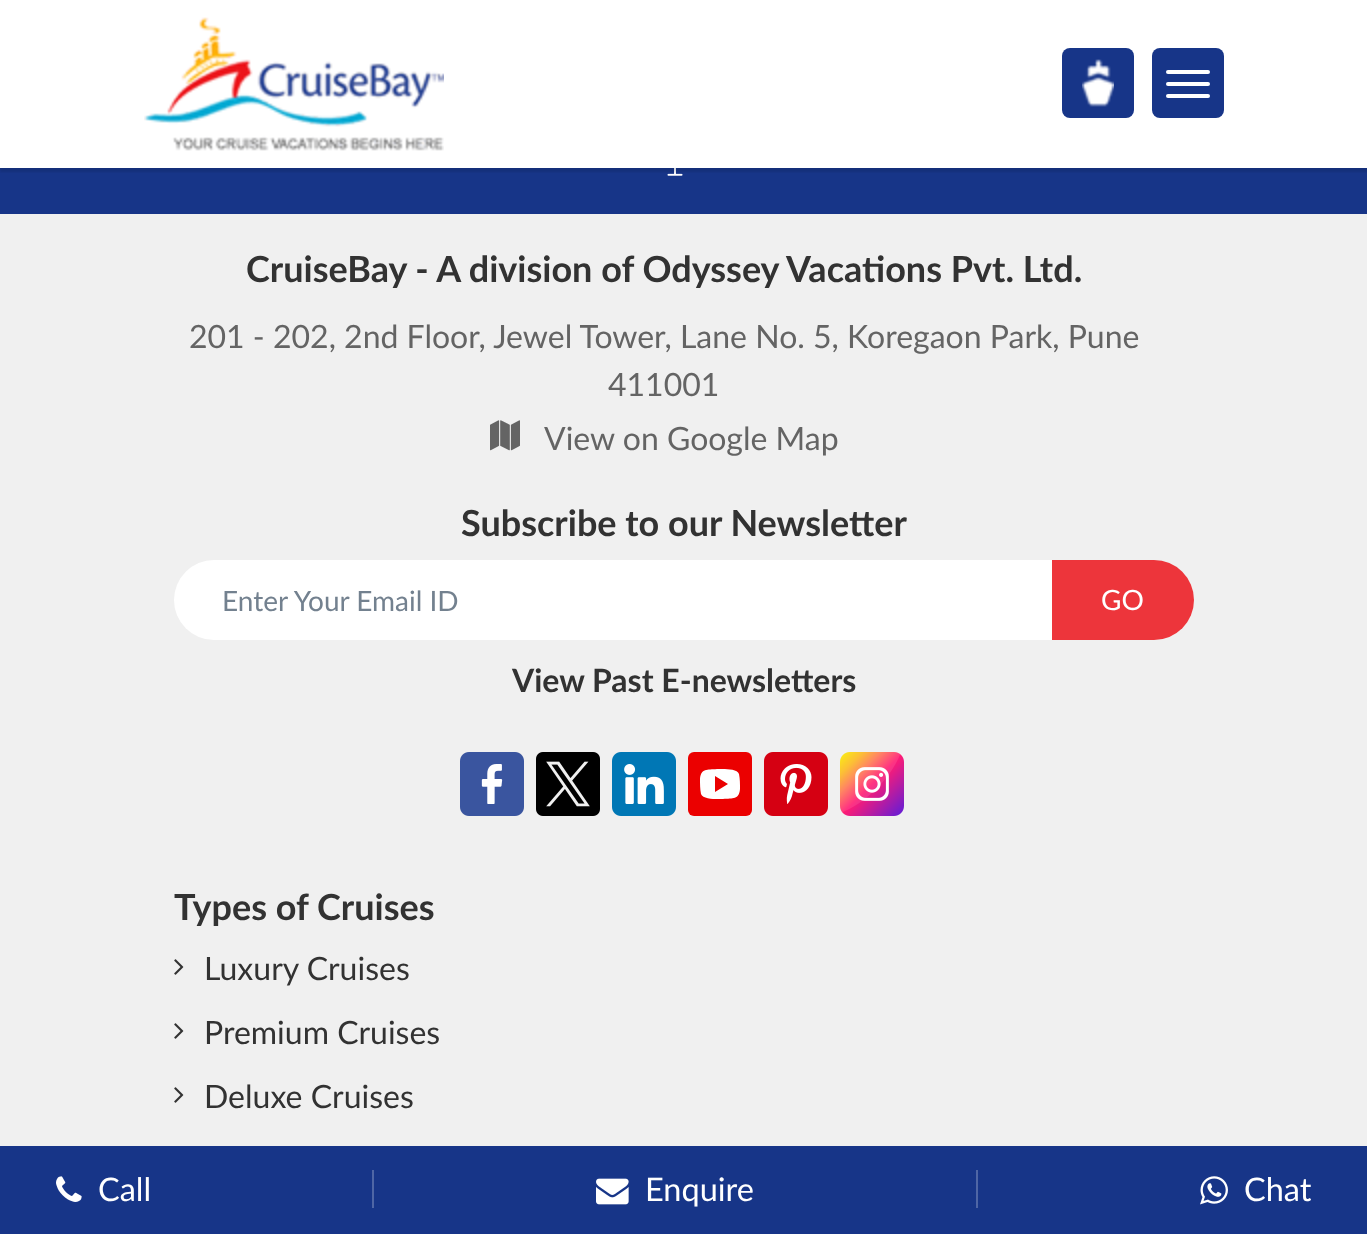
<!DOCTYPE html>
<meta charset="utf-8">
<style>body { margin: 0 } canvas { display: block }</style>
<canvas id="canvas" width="1367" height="1234"></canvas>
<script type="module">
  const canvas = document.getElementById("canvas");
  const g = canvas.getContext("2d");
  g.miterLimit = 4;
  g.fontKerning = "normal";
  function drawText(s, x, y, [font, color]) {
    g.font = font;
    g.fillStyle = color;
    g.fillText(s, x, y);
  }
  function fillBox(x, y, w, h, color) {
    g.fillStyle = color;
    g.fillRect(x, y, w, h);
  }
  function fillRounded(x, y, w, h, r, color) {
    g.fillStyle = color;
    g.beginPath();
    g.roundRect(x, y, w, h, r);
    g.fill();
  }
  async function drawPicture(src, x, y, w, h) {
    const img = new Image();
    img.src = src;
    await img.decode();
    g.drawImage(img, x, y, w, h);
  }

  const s1 = ["bold 36px Lato", "#323232"];
  const s2 = ["32px Lato", "#646464"];
  const s3 = ["28px Lato", "#73818F"];
  const s4 = ["28px Lato", "#FFFFFF"];
  const s5 = ["bold 32px Lato", "#323232"];
  const s6 = ["32px Lato", "#323232"];
  const s7 = ["32.5px Lato", "#FFFFFF"];

  fillBox(0, 0, 1367, 1234, "#F0F0F0");
  fillBox(0, 0, 1367, 168, "#FFFFFF");
  fillBox(0, 168, 1367, 46, "#173588");
  await drawPicture("pic3.png", 667, 168, 16, 8);
  g.save();
  g.beginPath();
  g.rect(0, 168, 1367, 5);
  g.clip();
  g.fillStyle = "rgba(0, 0, 0, 0.1)";
  g.filter = "blur(1px)";
  g.beginPath();
  g.rect(0, 4, 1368, 168);
  g.fill();
  g.filter = "none";
  g.restore();
  await drawPicture("pic1.png", 144, 17, 300, 134);
  fillRounded(1062, 48, 72, 70, 8, "#173588");
  await drawPicture("pic2.png", 1082, 59, 32, 48);
  fillRounded(1152, 48, 72, 70, 8, "#173588");
  fillRounded(1166, 70, 44, 4, 2, "#FFFFFF");
  fillRounded(1166, 82, 44, 4, 2, "#FFFFFF");
  fillRounded(1166, 94, 44, 4, 2, "#FFFFFF");
  drawText("CruiseBay - A division of Odyssey Vacations Pvt. Ltd.", 246, 282, s1);
  drawText("201 - 202, 2nd Floor, Jewel Tower, Lane No. 5, Koregaon Park, Pune", 189, 348, s2);
  drawText("411001", 608, 396, s2);
  await drawPicture("pic4.png", 490, 420, 30, 31);
  drawText("View on Google Map", 544, 450, s2);
  drawText("Subscribe to our Newsletter", 461, 536, s1);
  g.fillStyle = "#FFFFFF";
  g.beginPath();
  g.roundRect(174, 560, 880, 80, [40, 0, 0, 40]);
  g.fill();
  drawText("Enter Your Email ID", 222, 611, s3);
  g.fillStyle = "#ED353B";
  g.beginPath();
  g.roundRect(1052, 560, 142, 80, [0, 40, 40, 0]);
  g.fill();
  drawText("GO", 1101, 610, s4);
  drawText("View Past E-newsletters", 512, 692, s5);
  await drawPicture("pic5.png", 460, 752, 64, 64);
  await drawPicture("pic6.png", 536, 752, 64, 64);
  await drawPicture("pic7.png", 612, 752, 64, 64);
  fillRounded(688, 752, 64, 64, 6, "#EB0000");
  g.fillStyle = "#FFFFFF";
  g.beginPath();
  g.moveTo(739, 774);
  g.bezierCurveTo(737, 768, 722, 769, 717, 769);
  g.bezierCurveTo(707, 770, 701, 768, 700, 779);
  g.bezierCurveTo(700, 784, 700, 789, 701, 794);
  g.bezierCurveTo(703, 800, 719, 799, 723, 799);
  g.bezierCurveTo(733, 798, 739, 800, 740, 789);
  g.bezierCurveTo(740, 784, 740, 779, 739, 774);
  g.closePath();
  g.moveTo(715, 792);
  g.lineTo(715, 776);
  g.lineTo(728, 784);
  g.closePath();
  g.fill();
  await drawPicture("pic8.png", 764, 752, 64, 64);
  await drawPicture("pic9.png", 840, 752, 64, 64);
  drawText("Types of Cruises", 174, 920, s1);
  await drawPicture("pic10.png", 174, 959, 10, 16);
  drawText("Luxury Cruises", 204, 980, s6);
  await drawPicture("pic10.png", 174, 1023, 10, 16);
  drawText("Premium Cruises", 204, 1044, s6);
  await drawPicture("pic10.png", 174, 1087, 10, 16);
  drawText("Deluxe Cruises", 204, 1108, s6);
  fillBox(0, 1146, 1367, 88, "#173588");
  await drawPicture("pic11.png", 56, 1176, 26, 26);
  drawText("Call", 98, 1201, s7);
  fillBox(372, 1170, 2, 38, "#4F66A5");
  await drawPicture("pic12.png", 596, 1178, 33, 27);
  drawText("Enquire", 645, 1201, s7);
  fillBox(976, 1170, 2, 38, "#4F66A5");
  await drawPicture("pic13.png", 1200, 1176, 28, 29);
  drawText("Chat", 1244, 1201, s7);
</script>
